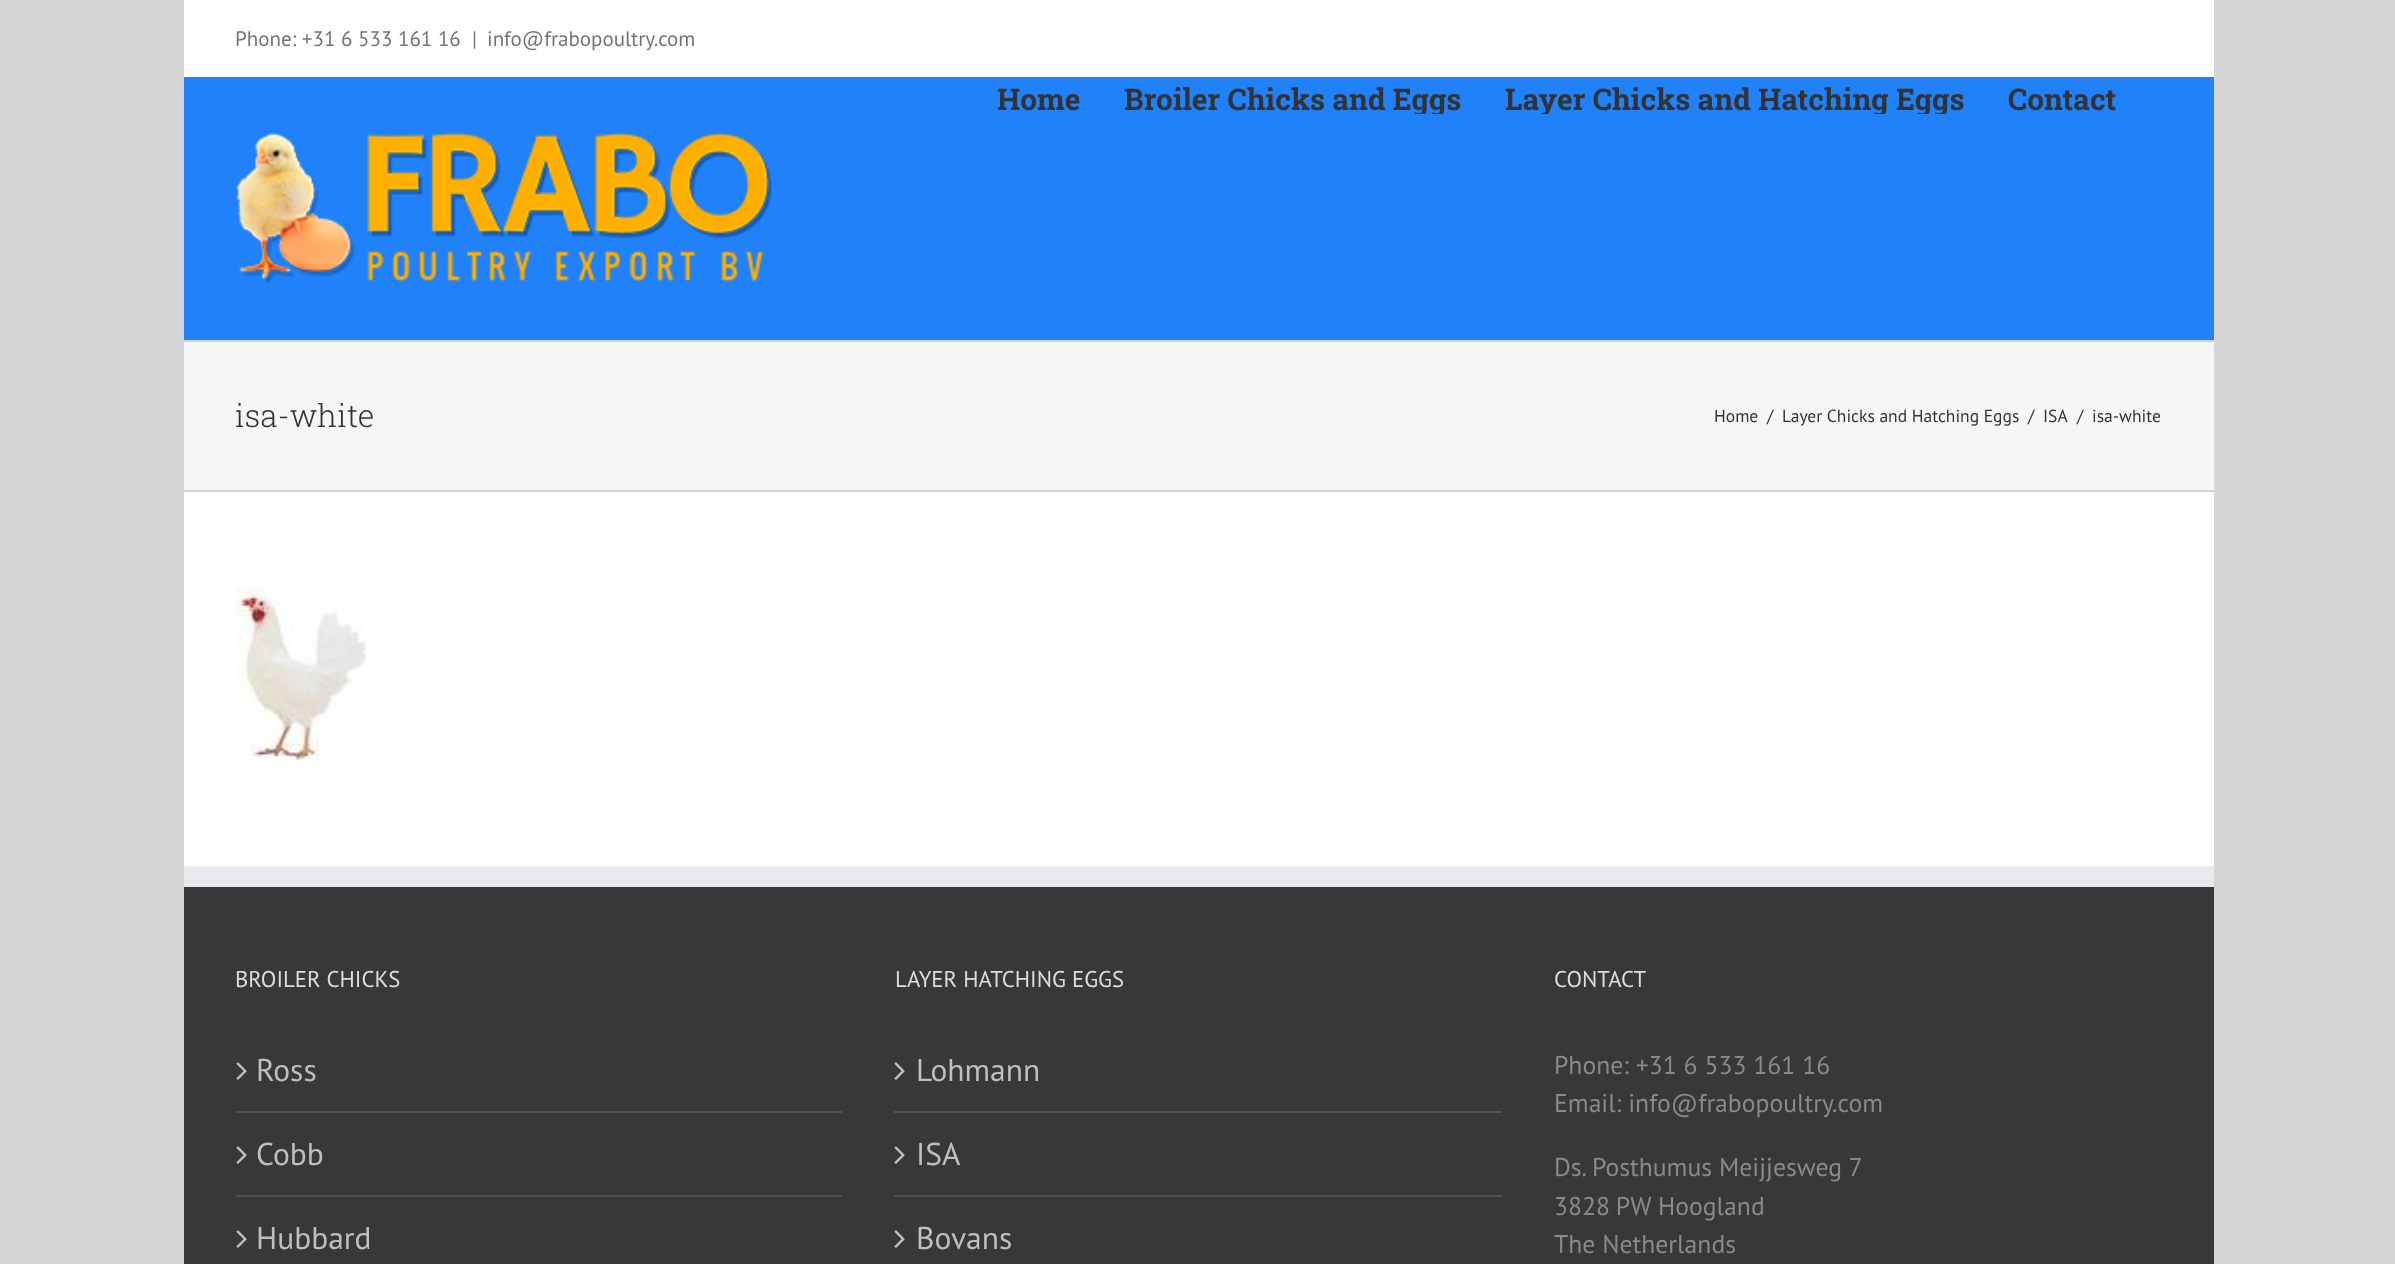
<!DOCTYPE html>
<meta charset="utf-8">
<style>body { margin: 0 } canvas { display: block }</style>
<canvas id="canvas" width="2395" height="1264"></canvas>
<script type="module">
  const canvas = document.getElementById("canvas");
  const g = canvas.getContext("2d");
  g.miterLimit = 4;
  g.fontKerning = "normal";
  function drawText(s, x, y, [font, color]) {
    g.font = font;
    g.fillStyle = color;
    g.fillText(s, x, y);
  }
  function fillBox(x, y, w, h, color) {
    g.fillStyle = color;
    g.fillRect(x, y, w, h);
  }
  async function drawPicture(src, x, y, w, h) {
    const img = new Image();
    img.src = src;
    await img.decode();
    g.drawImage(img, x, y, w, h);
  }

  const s1 = ["21px PT Sans", "#747474"];
  const s2 = ["bold 29.75px Roboto Slab", "#333333"];
  const s3 = ["300 31.5px Roboto Slab", "#333333"];
  const s4 = ["17.5px PT Sans", "#333333"];
  const s5 = ["22.75px PT Sans", "#DDDDDD"];
  const s6 = ["31.5px PT Sans", "#BFBFBF"];
  const s7 = ["25.7px PT Sans", "#8C8989"];

  fillBox(0, 0, 2395, 1264, "#D7D6D6");
  fillBox(184, 0, 2030, 77, "#FFFFFF");
  fillBox(184, 77, 2030, 263, "#2181F8");
  drawText("Phone: +31 6 533 161 16", 235, 46, s1);
  drawText("|", 472, 46, s1);
  drawText("info@frabopoultry.com", 487, 46, s1);
  g.save();
  g.beginPath();
  g.rect(998, 79, 1163, 35);
  g.clip();
  drawText("Home", 997, 110, s2);
  g.restore();
  g.save();
  g.beginPath();
  g.rect(1124, 79, 381, 35);
  g.clip();
  drawText("Broiler Chicks and Eggs", 1124, 110, s2);
  g.restore();
  g.save();
  g.beginPath();
  g.rect(1505, 79, 504, 35);
  g.clip();
  drawText("Layer Chicks and Hatching Eggs", 1505, 110, s2);
  g.restore();
  drawText("Contact", 2008, 110, s2);
  await drawPicture("pic1.png", 236, 133, 536, 151);
  fillBox(184, 342, 2030, 148, "#F6F6F6");
  fillBox(184, 340, 2030, 2, "#D2D3D4");
  fillBox(184, 490, 2030, 2, "#D2D3D4");
  drawText("isa-white", 235, 427, s3);
  drawText("Home", 1714, 422, s4);
  drawText("/", 1767, 422, s4);
  drawText("Layer Chicks and Hatching Eggs", 1782, 422, s4);
  drawText("/", 2028, 422, s4);
  drawText("ISA", 2043, 422, s4);
  drawText("/", 2077, 422, s4);
  drawText("isa-white", 2092, 422, s4);
  fillBox(184, 492, 2030, 374, "#FFFFFF");
  await drawPicture("pic2.png", 236, 588, 131, 173);
  fillBox(184, 887, 2030, 377, "#363839");
  fillBox(184, 866, 2030, 21, "#E9EAEE");
  drawText("BROILER CHICKS", 235, 987, s5);
  fillBox(236, 1111, 606, 2, "#505152");
  await drawPicture("pic3.png", 236, 1062, 11, 18);
  drawText("Ross", 256, 1081, s6);
  fillBox(236, 1195, 606, 2, "#505152");
  await drawPicture("pic3.png", 236, 1146, 11, 18);
  drawText("Cobb", 256, 1165, s6);
  await drawPicture("pic3.png", 236, 1230, 11, 18);
  drawText("Hubbard", 256, 1249, s6);
  drawText("LAYER HATCHING EGGS", 895, 987, s5);
  fillBox(894, 1111, 608, 2, "#505152");
  await drawPicture("pic3.png", 894, 1062, 11, 18);
  drawText("Lohmann", 916, 1081, s6);
  fillBox(894, 1195, 608, 2, "#505152");
  await drawPicture("pic3.png", 894, 1146, 11, 18);
  drawText("ISA", 916, 1165, s6);
  await drawPicture("pic3.png", 894, 1230, 11, 18);
  drawText("Bovans", 916, 1249, s6);
  drawText("CONTACT", 1554, 987, s5);
  drawText("Phone: +31 6 533 161 16", 1554, 1074, s7);
  drawText("Email: info@frabopoultry.com", 1554, 1112, s7);
  drawText("Ds. Posthumus Meijjesweg 7", 1554, 1176, s7);
  g.wordSpacing = "-1px";
  drawText("3828 PW", 1554, 1215, s7);
  g.wordSpacing = "0px";
  drawText("Hoogland", 1658, 1215, s7);
  drawText("The Netherlands", 1554, 1253, s7);
</script>
